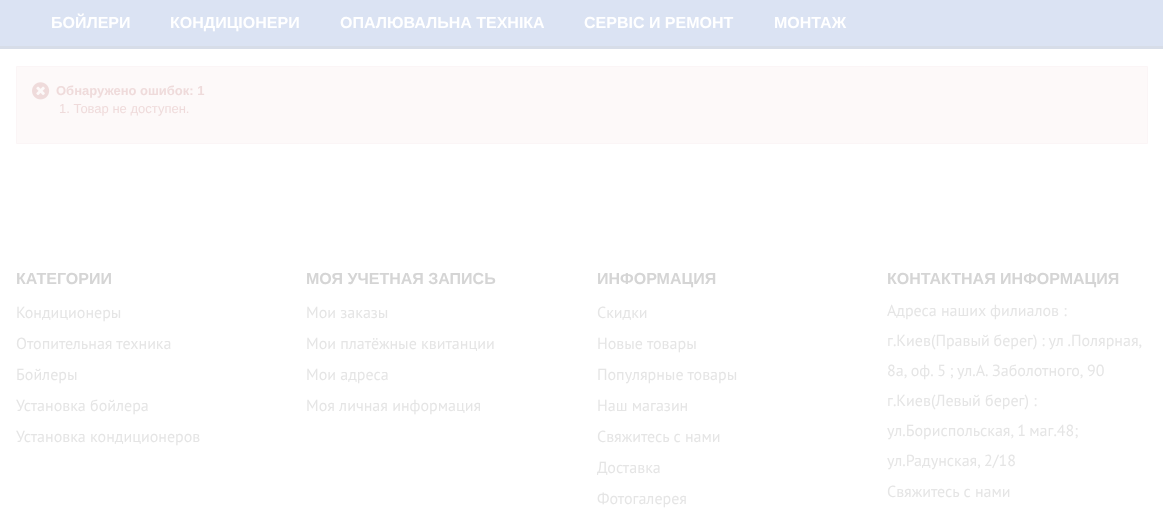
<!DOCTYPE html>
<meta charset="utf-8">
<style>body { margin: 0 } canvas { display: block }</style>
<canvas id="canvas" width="1163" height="523"></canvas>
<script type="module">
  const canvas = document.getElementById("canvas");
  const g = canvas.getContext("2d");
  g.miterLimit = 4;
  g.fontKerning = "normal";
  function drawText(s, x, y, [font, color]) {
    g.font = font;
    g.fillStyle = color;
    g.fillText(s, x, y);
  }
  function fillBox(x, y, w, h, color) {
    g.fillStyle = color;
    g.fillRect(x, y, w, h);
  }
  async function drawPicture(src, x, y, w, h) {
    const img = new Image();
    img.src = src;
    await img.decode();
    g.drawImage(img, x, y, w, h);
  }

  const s1 = ["bold 16px Liberation Sans", "#FFFFFF"];
  const s2 = ["bold 13px Liberation Sans", "#EFDBDB"];
  const s3 = ["13px Liberation Sans", "#EFDBDB"];
  const s4 = ["bold 16px Liberation Sans", "#D5D5D5"];
  const s5 = ["16px PT Sans", "#E5E5E5"];

  fillBox(0, 0, 1163, 523, "#FFFFFF");
  fillBox(0, 0, 1163, 46, "#DBE3F3");
  fillBox(0, 46, 1163, 3, "#D7DDE8");
  drawText("БОЙЛЕРИ", 51, 28, s1);
  drawText("КОНДИЦІОНЕРИ", 170, 28, s1);
  drawText("ОПАЛЮВАЛЬНА ТЕХНІКА", 340, 28, s1);
  drawText("СЕРВІС И РЕМОНТ", 584, 28, s1);
  drawText("МОНТАЖ", 774, 28, s1);
  g.fillStyle = "#FDF9F9";
  g.beginPath();
  g.rect(16.5, 66.5, 1131, 77);
  g.fill();
  g.strokeStyle = "#FBF5F6";
  g.stroke();
  await drawPicture("pic1.png", 32, 82, 18, 18);
  drawText("Обнаружено ошибок: 1", 56, 95, s2);
  drawText("1. Товар не доступен.", 59, 113, s3);
  drawText("КАТЕГОРИИ", 16, 284, s4);
  drawText("Кондиционеры", 16, 318, s5);
  drawText("Отопительная техника", 16, 349, s5);
  drawText("Бойлеры", 16, 380, s5);
  drawText("Установка бойлера", 16, 411, s5);
  drawText("Установка кондиционеров", 16, 442, s5);
  drawText("МОЯ УЧЕТНАЯ ЗАПИСЬ", 306, 284, s4);
  drawText("Мои заказы", 306, 318, s5);
  drawText("Мои платёжные квитанции", 306, 349, s5);
  drawText("Мои адреса", 306, 380, s5);
  drawText("Моя личная информация", 306, 411, s5);
  drawText("ИНФОРМАЦИЯ", 597, 284, s4);
  drawText("Скидки", 597, 318, s5);
  drawText("Новые товары", 597, 349, s5);
  drawText("Популярные товары", 597, 380, s5);
  drawText("Наш магазин", 597, 411, s5);
  drawText("Свяжитесь с нами", 597, 442, s5);
  drawText("Доставка", 597, 473, s5);
  drawText("Фотогалерея", 597, 504, s5);
  drawText("КОНТАКТНАЯ ИНФОРМАЦИЯ", 887, 284, s4);
  drawText("Адреса наших филиалов :", 887, 316, s5);
  g.wordSpacing = "-0.5px";
  drawText("г.Киев(Правый берег) : ул .Полярная,", 887, 346, s5);
  g.wordSpacing = "-0.75px";
  drawText("8а, оф. 5 ; ул.А. Заболотного, 90", 887, 376, s5);
  g.wordSpacing = "0px";
  drawText("г.Киев(Левый берег) :", 887, 406, s5);
  g.wordSpacing = "-1px";
  drawText("ул.Бориспольская, 1 маг.48;", 887, 436, s5);
  drawText("ул.Радунская, 2/18", 887, 466, s5);
  g.wordSpacing = "0px";
  drawText("Свяжитесь с нами", 887, 497, s5);
</script>
